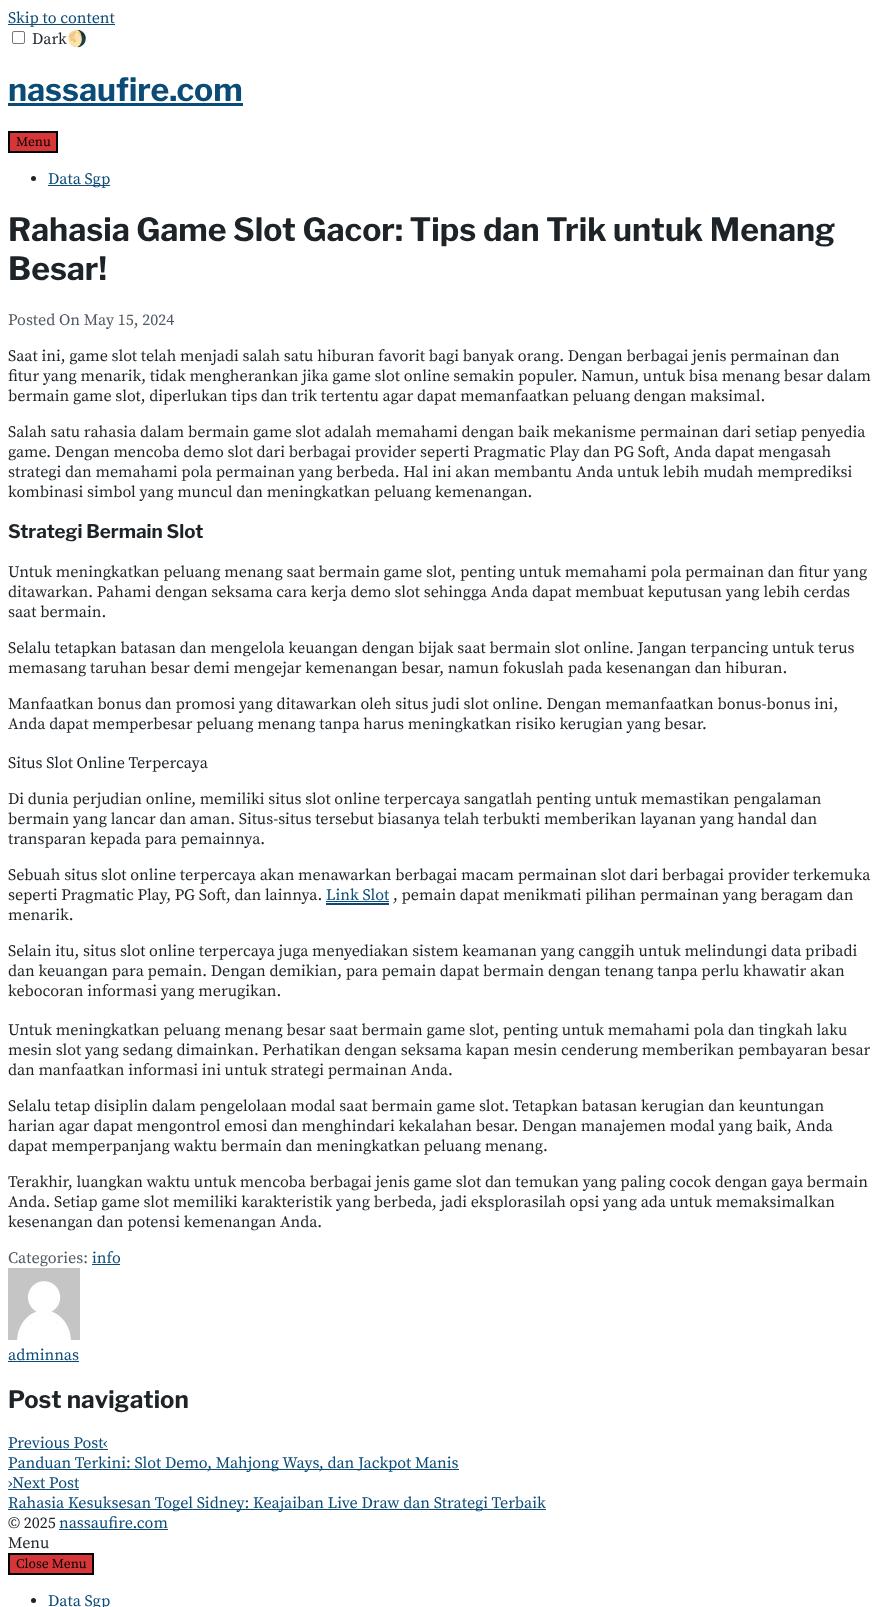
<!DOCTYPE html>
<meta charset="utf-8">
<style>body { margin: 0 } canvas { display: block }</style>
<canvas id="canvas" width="882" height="1607"></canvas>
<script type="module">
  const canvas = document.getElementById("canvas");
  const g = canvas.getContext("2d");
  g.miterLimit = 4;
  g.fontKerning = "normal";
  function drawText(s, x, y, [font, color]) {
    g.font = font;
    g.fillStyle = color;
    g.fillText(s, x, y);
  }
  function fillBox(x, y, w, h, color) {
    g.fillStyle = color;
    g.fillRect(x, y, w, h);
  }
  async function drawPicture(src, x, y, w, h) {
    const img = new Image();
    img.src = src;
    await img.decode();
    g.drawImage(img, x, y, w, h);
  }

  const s1 = ["16px Source Serif Pro", "#0A4B78"];
  const s2 = ["16px Source Serif Pro", "#1D2327"];
  const s3 = ["16px Noto Color Emoji", "#1D2327"];
  const s4 = ["bold 32px Libre Franklin", "#0A4B78"];
  const s5 = ["13.5px Source Serif Pro", "#000000"];
  const s6 = ["bold 32px Libre Franklin", "#1D2327"];
  const s7 = ["16px Source Serif Pro", "#515962"];
  const s8 = ["bold 18.75px Libre Franklin", "#1D2327"];
  const s9 = ["bold 24px Libre Franklin", "#1D2327"];

  fillBox(0, 0, 882, 1607, "#FFFFFF");
  fillBox(8, 24, 107, 1, "#0A4B78");
  drawText("Skip to content", 8, 23, s1);
  g.beginPath();
  g.roundRect(12.5, 31.5, 12, 12, 1.5);
  g.strokeStyle = "#767676";
  g.stroke();
  drawText("Dark", 32, 44, s2);
  drawText("🌖", 67, 44, s3);
  drawText("nassaufire.com", 8, 101, s4);
  fillBox(8, 103, 235, 3, "#0A4B78");
  g.fillStyle = "#D63638";
  g.beginPath();
  g.rect(9, 132, 48, 20);
  g.fill();
  g.strokeStyle = "#000000";
  g.lineWidth = 2;
  g.stroke();
  drawText("Menu", 16, 146, s5);
  g.fillStyle = "#1D2327";
  g.beginPath();
  g.arc(33.5, 178.5, 2.5, 0, Math.PI * 2);
  g.fill();
  fillBox(48, 185, 62, 1, "#0A4B78");
  drawText("Data Sgp", 48, 184, s1);
  drawText("Rahasia Game Slot Gacor: Tips dan Trik untuk Menang", 8, 241, s6);
  drawText("Besar!", 8, 280, s6);
  drawText("Posted On May 15, 2024", 8, 325, s7);
  drawText("Saat ini, game slot telah menjadi salah satu hiburan favorit bagi banyak orang. Dengan berbagai jenis permainan dan", 8, 361, s2);
  drawText("fitur yang menarik, tidak mengherankan jika game slot online semakin populer. Namun, untuk bisa menang besar dalam", 8, 381, s2);
  drawText("bermain game slot, diperlukan tips dan trik tertentu agar dapat memanfaatkan peluang dengan maksimal.", 8, 401, s2);
  drawText("Salah satu rahasia dalam bermain game slot adalah memahami dengan baik mekanisme permainan dari setiap penyedia", 8, 437, s2);
  drawText("game. Dengan mencoba demo slot dari berbagai provider seperti Pragmatic Play dan PG Soft, Anda dapat mengasah", 8, 457, s2);
  drawText("strategi dan memahami pola permainan yang berbeda. Hal ini akan membantu Anda untuk lebih mudah memprediksi", 8, 477, s2);
  drawText("kombinasi simbol yang muncul dan meningkatkan peluang kemenangan.", 8, 497, s2);
  drawText("Strategi Bermain Slot", 8, 538, s8);
  drawText("Untuk meningkatkan peluang menang saat bermain game slot, penting untuk memahami pola permainan dan fitur yang", 8, 577, s2);
  drawText("ditawarkan. Pahami dengan seksama cara kerja demo slot sehingga Anda dapat membuat keputusan yang lebih cerdas", 8, 597, s2);
  drawText("saat bermain.", 8, 617, s2);
  drawText("Selalu tetapkan batasan dan mengelola keuangan dengan bijak saat bermain slot online. Jangan terpancing untuk terus", 8, 653, s2);
  drawText("memasang taruhan besar demi mengejar kemenangan besar, namun fokuslah pada kesenangan dan hiburan.", 8, 673, s2);
  drawText("Manfaatkan bonus dan promosi yang ditawarkan oleh situs judi slot online. Dengan memanfaatkan bonus-bonus ini,", 8, 709, s2);
  drawText("Anda dapat memperbesar peluang menang tanpa harus meningkatkan risiko kerugian yang besar.", 8, 729, s2);
  drawText("Situs Slot Online Terpercaya", 8, 768, s2);
  drawText("Di dunia perjudian online, memiliki situs slot online terpercaya sangatlah penting untuk memastikan pengalaman", 8, 804, s2);
  drawText("bermain yang lancar dan aman. Situs-situs tersebut biasanya telah terbukti memberikan layanan yang handal dan", 8, 824, s2);
  drawText("transparan kepada para pemainnya.", 8, 844, s2);
  drawText("Sebuah situs slot online terpercaya akan menawarkan berbagai macam permainan slot dari berbagai provider terkemuka", 8, 880, s2);
  drawText("seperti Pragmatic Play, PG Soft, dan lainnya.", 8, 900, s2);
  drawText("Link Slot", 326, 900, s1);
  fillBox(326, 903, 63, 2, "#0A4B78");
  fillBox(326, 901, 63, 1, "#0A4B78");
  drawText(", pemain dapat menikmati pilihan permainan yang beragam dan", 393, 900, s2);
  drawText("menarik.", 8, 920, s2);
  drawText("Selain itu, situs slot online terpercaya juga menyediakan sistem keamanan yang canggih untuk melindungi data pribadi", 8, 956, s2);
  drawText("dan keuangan para pemain. Dengan demikian, para pemain dapat bermain dengan tenang tanpa perlu khawatir akan", 8, 976, s2);
  drawText("kebocoran informasi yang merugikan.", 8, 996, s2);
  drawText("Untuk meningkatkan peluang menang besar saat bermain game slot, penting untuk memahami pola dan tingkah laku", 8, 1035, s2);
  drawText("mesin slot yang sedang dimainkan. Perhatikan dengan seksama kapan mesin cenderung memberikan pembayaran besar", 8, 1055, s2);
  drawText("dan manfaatkan informasi ini untuk strategi permainan Anda.", 8, 1075, s2);
  drawText("Selalu tetap disiplin dalam pengelolaan modal saat bermain game slot. Tetapkan batasan kerugian dan keuntungan", 8, 1111, s2);
  drawText("harian agar dapat mengontrol emosi dan menghindari kekalahan besar. Dengan manajemen modal yang baik, Anda", 8, 1131, s2);
  drawText("dapat memperpanjang waktu bermain dan meningkatkan peluang menang.", 8, 1151, s2);
  drawText("Terakhir, luangkan waktu untuk mencoba berbagai jenis game slot dan temukan yang paling cocok dengan gaya bermain", 8, 1187, s2);
  drawText("Anda. Setiap game slot memiliki karakteristik yang berbeda, jadi eksplorasilah opsi yang ada untuk memaksimalkan", 8, 1207, s2);
  drawText("kesenangan dan potensi kemenangan Anda.", 8, 1227, s2);
  drawText("Categories:", 8, 1263, s7);
  drawText("info", 92, 1263, s1);
  fillBox(92, 1264, 28, 1, "#0A4B78");
  await drawPicture("pic1.png", 8, 1268, 72, 72);
  drawText("adminnas", 8, 1360, s1);
  fillBox(8, 1361, 71, 1, "#0A4B78");
  drawText("Post navigation", 8, 1408, s9);
  drawText("Previous Post", 8, 1448, s1);
  drawText("‹", 103, 1448, s1);
  fillBox(8, 1449, 100, 1, "#0A4B78");
  fillBox(8, 1469, 451, 1, "#0A4B78");
  drawText("Panduan Terkini: Slot Demo, Mahjong Ways, dan Jackpot Manis", 8, 1468, s1);
  drawText("›Next Post", 8, 1488, s1);
  fillBox(8, 1489, 71, 1, "#0A4B78");
  fillBox(8, 1509, 538, 1, "#0A4B78");
  drawText("Rahasia Kesuksesan Togel Sidney: Keajaiban Live Draw dan Strategi Terbaik", 8, 1508, s1);
  drawText("© 2025", 8, 1528, s2);
  drawText("nassaufire.com", 59, 1528, s1);
  fillBox(59, 1529, 109, 1, "#0A4B78");
  drawText("Menu", 8, 1548, s2);
  g.fillStyle = "#D63638";
  g.beginPath();
  g.rect(9, 1554, 84, 20);
  g.fill();
  g.stroke();
  drawText("Close Menu", 16, 1568, s5);
  g.fillStyle = "#1D2327";
  g.beginPath();
  g.arc(33.5, 1600.5, 2.5, 0, Math.PI * 2);
  g.fill();
  drawText("Data Sgp", 48, 1606, s1);
</script>
